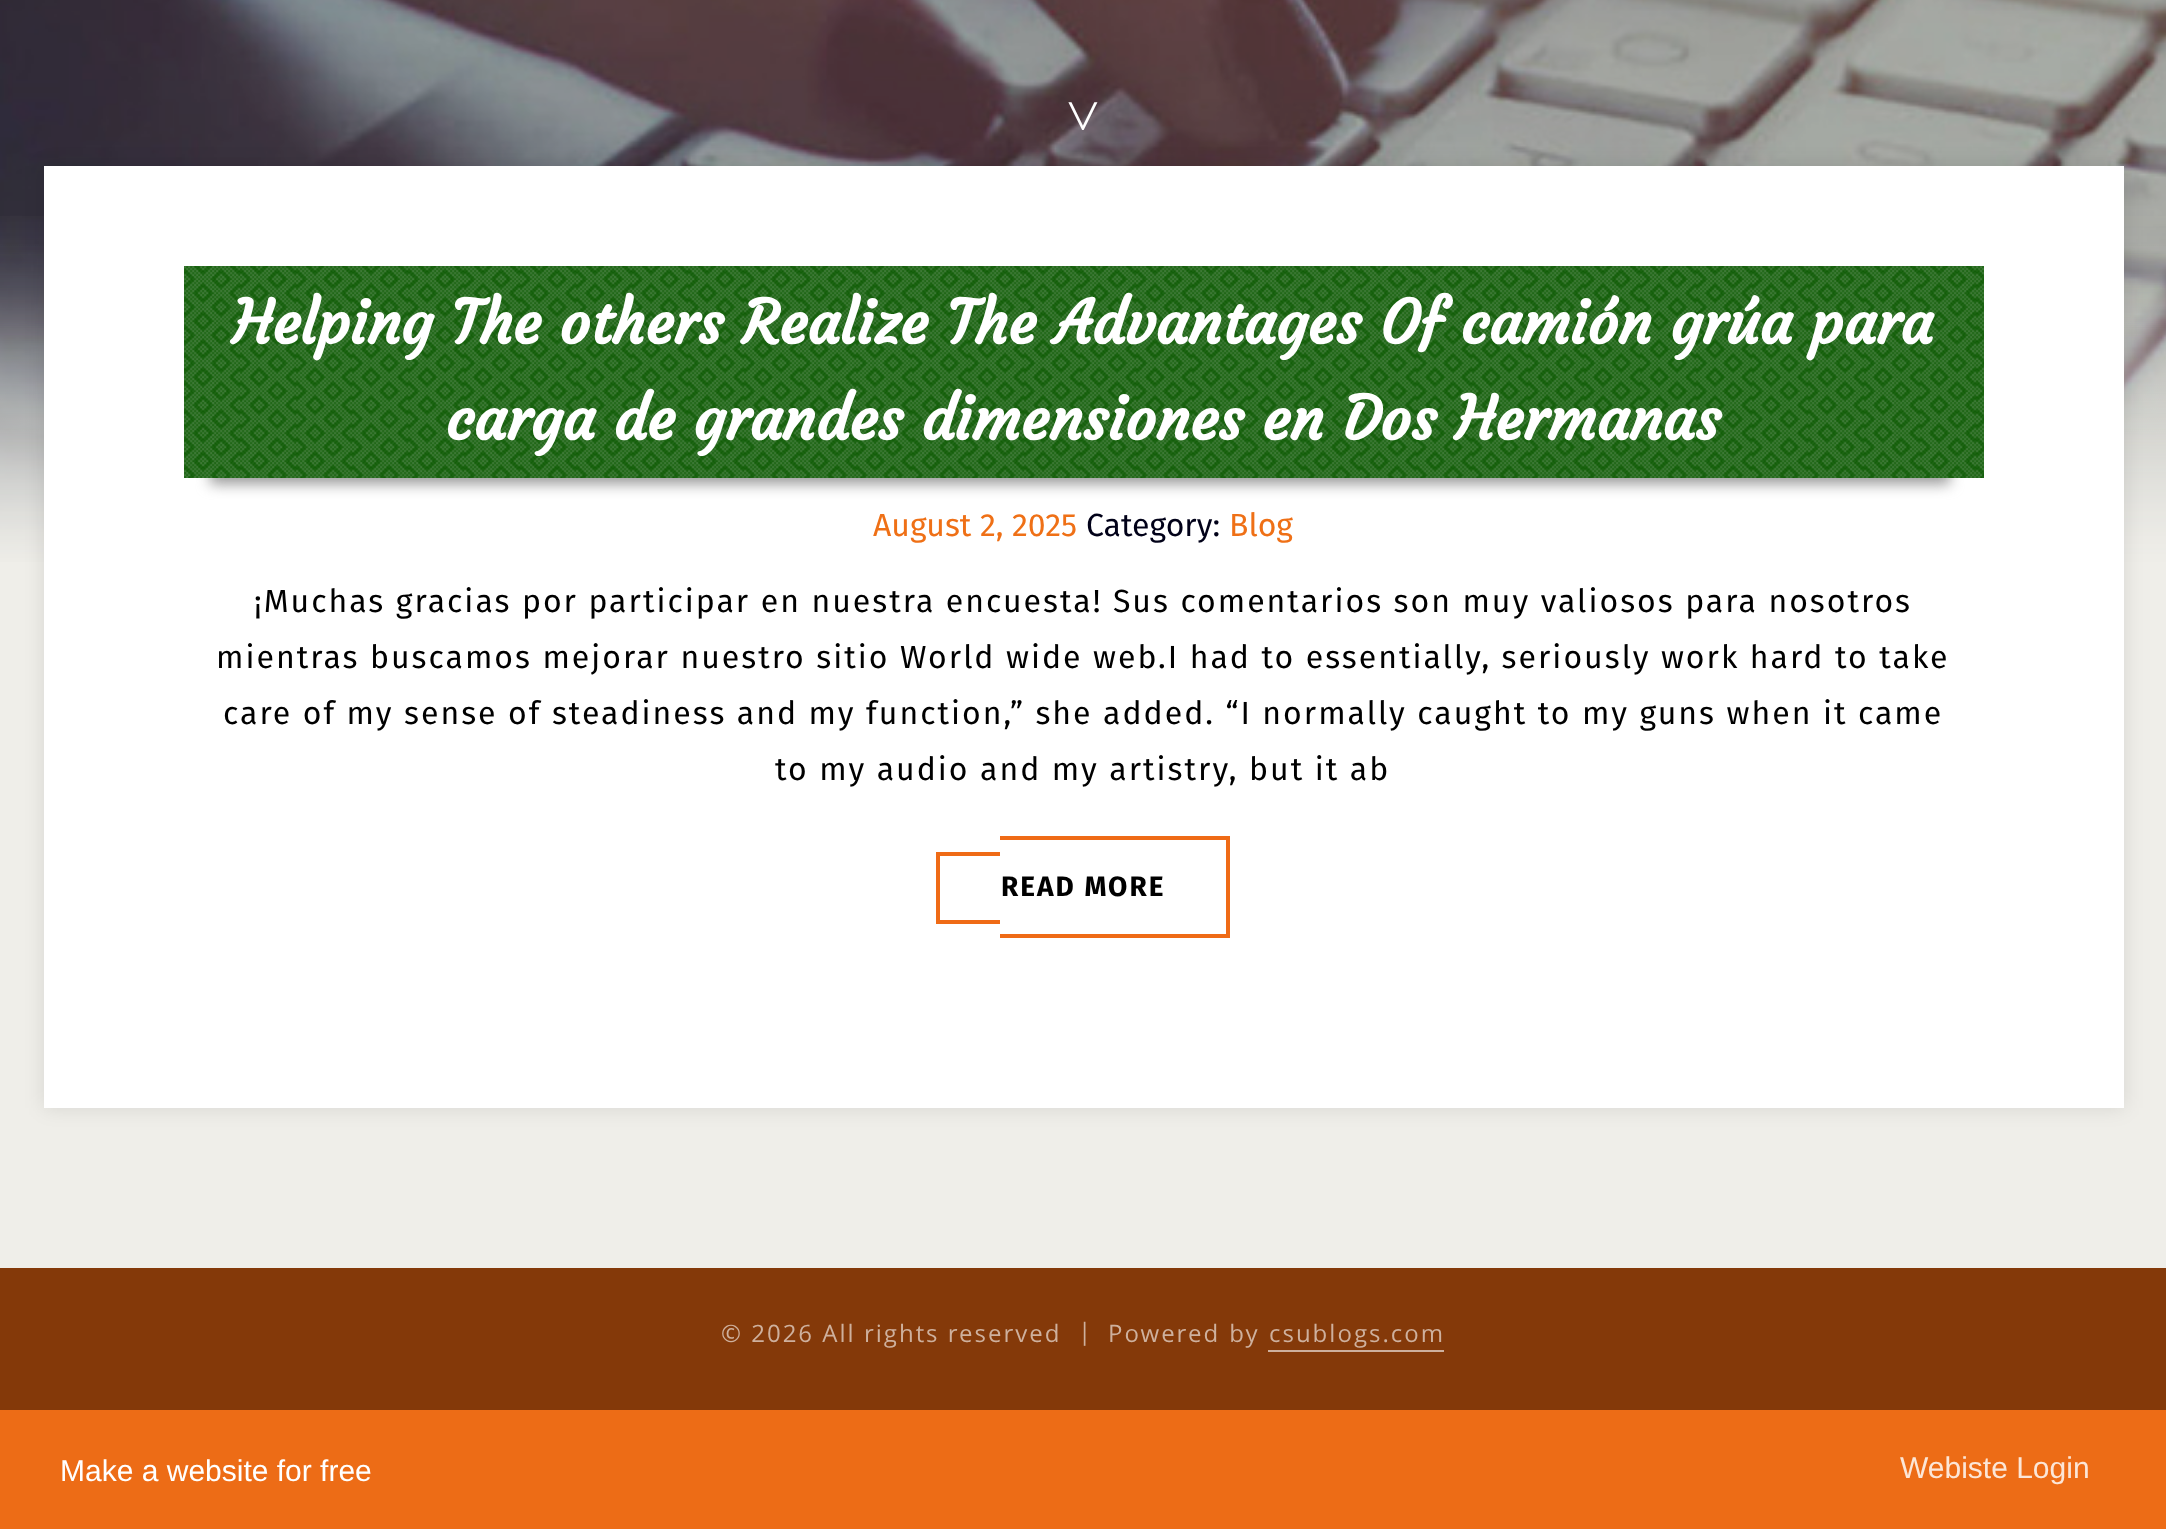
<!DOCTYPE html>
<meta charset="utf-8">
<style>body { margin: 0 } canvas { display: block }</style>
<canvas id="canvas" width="2166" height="1529"></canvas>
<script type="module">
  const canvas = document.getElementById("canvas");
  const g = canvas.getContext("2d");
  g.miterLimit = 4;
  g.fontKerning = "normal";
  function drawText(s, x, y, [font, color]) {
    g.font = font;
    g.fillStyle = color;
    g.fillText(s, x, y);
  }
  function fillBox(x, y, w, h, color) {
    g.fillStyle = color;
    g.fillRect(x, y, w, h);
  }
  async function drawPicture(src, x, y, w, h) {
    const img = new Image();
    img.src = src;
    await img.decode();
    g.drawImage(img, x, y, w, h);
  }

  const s1 = ["60px Liberation Serif", "#FFFFFF"];
  const s2 = ["bold 60px Courgette", "#FFFFFF"];
  const s3 = ["32px Fira Sans", "#EF7016"];
  const s4 = ["32px Fira Sans", "#010118"];
  const s5 = ["32px Fira Sans", "#000000"];
  const s6 = ["bold 28px Fira Sans", "#000000"];
  const s7 = ["24px Open Sans", "#CEB09D"];
  const s8 = ["30px Liberation Sans", "#FFFFFF"];
  const s9 = ["30px Liberation Sans", "#FCE6D7"];

  fillBox(0, 0, 2166, 1529, "#EFEEE9");
  await drawPicture("pic1.png", 0, 0, 2166, 562);
  drawText("˅", 1066, 136, s1);
  await drawPicture("pic2.png", 0, 216, 2166, 350);
  g.fillStyle = "rgba(0, 0, 0, 0.1)";
  g.filter = "blur(10px)";
  g.beginPath();
  g.rect(44, 166, 2080, 942);
  g.fill();
  g.filter = "none";
  fillBox(44, 166, 2080, 942, "#FFFFFF");
  g.fillStyle = "#999999";
  g.filter = "blur(7px)";
  g.beginPath();
  g.rect(210, 332, 1740, 152);
  g.fill();
  g.filter = "none";
  fillBox(184, 266, 1800, 212, "#0B5A00");
  await drawPicture("pic3.png", 184, 266, 1800, 212);
  drawText("Helping The others Realize The Advantages Of camión grúa para", 232, 344, s2);
  drawText("carga de grandes dimensiones en Dos Hermanas", 446, 440, s2);
  drawText("August 2, 2025", 873, 536, s3);
  drawText("Category:", 1086, 536, s4);
  drawText("Blog", 1229, 536, s3);
  g.letterSpacing = "2px";
  drawText("¡Muchas gracias por participar en nuestra encuesta! Sus comentarios son muy valiosos para nosotros", 254, 612, s5);
  drawText("mientras buscamos mejorar nuestro sitio World wide web.I had to essentially, seriously work hard to take", 216, 668, s5);
  drawText("care of my sense of steadiness and my function,” she added. “I normally caught to my guns when it came", 223, 724, s5);
  drawText("to my audio and my artistry, but it ab", 775, 780, s5);
  drawText("READ MORE", 1001, 896, s6);
  fillBox(936, 852, 64, 4, "#EF6B16");
  fillBox(936, 920, 64, 4, "#EF6B16");
  fillBox(936, 852, 4, 72, "#EF6B16");
  fillBox(1000, 836, 230, 4, "#EF6B16");
  fillBox(1000, 934, 166, 4, "#EF6B16");
  fillBox(1226, 836, 4, 102, "#EF6B16");
  fillBox(1166, 934, 64, 4, "#EF6B16");
  fillBox(0, 1268, 2166, 142, "#843909");
  drawText("© 2026 All rights reserved", 721, 1342, s7);
  drawText("|", 1078, 1340, s7);
  g.wordSpacing = "1px";
  drawText("Powered by", 1108, 1342, s7);
  g.wordSpacing = "0px";
  drawText("csublogs.com", 1269, 1342, s7);
  fillBox(1268, 1350, 176, 2, "#CEB09D");
  fillBox(0, 1410, 2166, 119, "#ED6C16");
  g.letterSpacing = "0px";
  drawText("Make a website for free", 60, 1481, s8);
  drawText("Webiste Login", 1900, 1478, s9);
</script>
